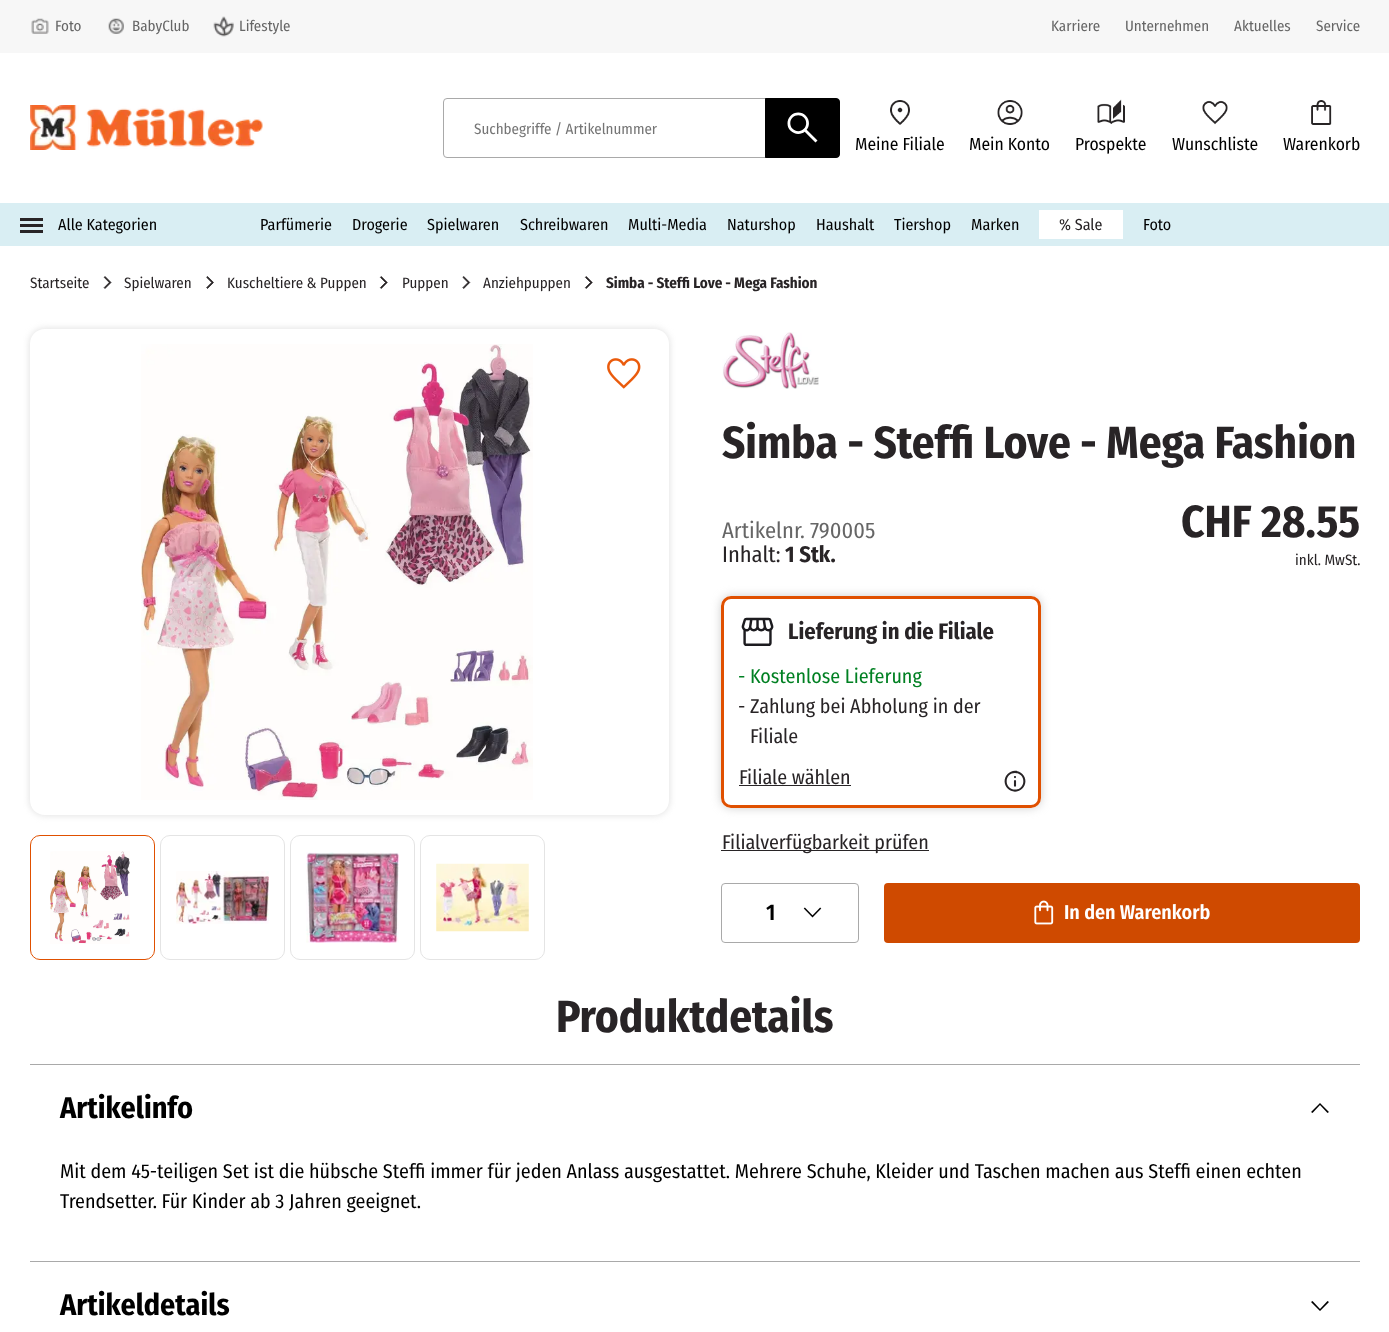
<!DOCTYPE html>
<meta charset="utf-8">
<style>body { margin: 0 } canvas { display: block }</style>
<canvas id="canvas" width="1389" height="1332"></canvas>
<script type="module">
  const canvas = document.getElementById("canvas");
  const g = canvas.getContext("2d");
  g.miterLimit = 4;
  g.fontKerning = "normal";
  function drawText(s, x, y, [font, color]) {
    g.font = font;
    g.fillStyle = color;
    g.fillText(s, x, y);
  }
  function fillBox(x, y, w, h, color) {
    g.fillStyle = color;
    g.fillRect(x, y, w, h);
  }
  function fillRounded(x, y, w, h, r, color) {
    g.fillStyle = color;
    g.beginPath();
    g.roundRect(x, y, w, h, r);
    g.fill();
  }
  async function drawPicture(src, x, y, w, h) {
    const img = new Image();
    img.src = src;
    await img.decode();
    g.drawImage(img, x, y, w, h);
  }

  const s1 = ["15px Fira Sans Condensed", "#666666"];
  const s2 = ["15px Fira Sans Condensed", "#757575"];
  const s3 = ["17.5px Fira Sans Condensed", "#000000"];
  const s4 = ["16px Fira Sans Condensed", "#000000"];
  const s5 = ["16px Fira Sans Condensed", "#282426"];
  const s6 = ["15px Fira Sans Condensed", "#282426"];
  const s7 = ["bold 15px Fira Sans Condensed", "#282426"];
  const s8 = ["bold 45px Fira Sans Condensed", "#282426"];
  const s9 = ["22.5px Fira Sans Condensed", "#666666"];
  const s10 = ["22.5px Fira Sans Condensed", "#282426"];
  const s11 = ["bold 22.5px Fira Sans Condensed", "#282426"];
  const s12 = ["20px Fira Sans Condensed", "#008022"];
  const s13 = ["20px Fira Sans Condensed", "#282426"];
  const s14 = ["600 22.5px Fira Sans Condensed", "#000000"];
  const s15 = ["600 20px Fira Sans Condensed", "#FFFFFF"];
  const s16 = ["bold 30px Fira Sans Condensed", "#000000"];
  const s17 = ["20px Fira Sans Condensed", "#000000"];

  fillBox(0, 0, 1389, 1332, "#FFFFFF");
  fillBox(0, 0, 1389, 53, "#F7F7F7");
  await drawPicture("pic1.png", 31, 18, 18, 16);
  drawText("Foto", 55, 31, s1);
  await drawPicture("pic2.png", 108, 18, 16, 16);
  drawText("BabyClub", 132, 31, s1);
  await drawPicture("pic3.png", 213, 16, 21, 21);
  drawText("Lifestyle", 239, 31, s1);
  drawText("Karriere", 1051, 31, s1);
  drawText("Unternehmen", 1125, 31, s1);
  drawText("Aktuelles", 1234, 31, s1);
  drawText("Service", 1316, 31, s1);
  await drawPicture("pic4.png", 30, 105, 233, 45);
  g.beginPath();
  g.roundRect(443.5, 98.5, 396, 59, 3.5);
  g.strokeStyle = "#A9A9A9";
  g.stroke();
  drawText("Suchbegriffe / Artikelnummer", 474, 134, s2);
  g.fillStyle = "#000000";
  g.beginPath();
  g.roundRect(765.5, 98.5, 74, 59, [0, 3.5, 3.5, 0]);
  g.fill();
  g.strokeStyle = "#000000";
  g.stroke();
  await drawPicture("pic5.png", 787, 112, 31, 31);
  await drawPicture("pic6.png", 890, 100, 20, 25);
  drawText("Meine Filiale", 855, 150, s3);
  await drawPicture("pic7.png", 997, 100, 26, 25);
  drawText("Mein Konto", 969, 150, s3);
  await drawPicture("pic8.png", 1097, 99, 28, 25);
  drawText("Prospekte", 1075, 150, s3);
  await drawPicture("pic9.png", 1202, 100, 26, 25);
  drawText("Wunschliste", 1172, 150, s3);
  await drawPicture("pic10.png", 1311, 100, 21, 25);
  drawText("Warenkorb", 1283, 150, s3);
  fillBox(0, 203, 1389, 43, "#D9EEF3");
  fillBox(20, 218, 23, 3, "#282426");
  fillBox(20, 230, 23, 3, "#282426");
  fillBox(20, 224, 23, 3, "#282426");
  drawText("Alle Kategorien", 58, 230, s4);
  drawText("Parfümerie", 260, 230, s4);
  drawText("Drogerie", 352, 230, s4);
  drawText("Spielwaren", 427, 230, s4);
  drawText("Schreibwaren", 520, 230, s4);
  drawText("Multi-Media", 628, 230, s4);
  drawText("Naturshop", 727, 230, s4);
  drawText("Haushalt", 816, 230, s4);
  drawText("Tiershop", 894, 230, s4);
  drawText("Marken", 971, 230, s4);
  fillBox(1039, 210, 84, 29, "#FFFFFF");
  drawText("% Sale", 1059, 230, s5);
  drawText("Foto", 1143, 230, s4);
  drawText("Startseite", 30, 288, s6);
  await drawPicture("pic11.png", 103, 276, 9, 13);
  drawText("Spielwaren", 124, 288, s6);
  await drawPicture("pic12.png", 206, 276, 8, 13);
  drawText("Kuscheltiere & Puppen", 227, 288, s6);
  await drawPicture("pic13.png", 379, 276, 9, 13);
  drawText("Puppen", 402, 288, s6);
  await drawPicture("pic14.png", 462, 276, 9, 13);
  drawText("Anziehpuppen", 483, 288, s6);
  await drawPicture("pic13.png", 584, 276, 9, 13);
  drawText("Simba - Steffi Love - Mega Fashion", 606, 288, s7);
  g.save();
  g.beginPath();
  g.moveTo(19, 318);
  g.lineTo(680, 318);
  g.lineTo(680, 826);
  g.lineTo(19, 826);
  g.closePath();
  g.moveTo(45, 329);
  g.lineTo(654, 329);
  g.bezierCurveTo(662.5, 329, 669, 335.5, 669, 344);
  g.lineTo(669, 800);
  g.bezierCurveTo(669, 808.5, 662.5, 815, 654, 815);
  g.lineTo(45, 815);
  g.bezierCurveTo(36.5, 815, 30, 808.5, 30, 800);
  g.lineTo(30, 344);
  g.bezierCurveTo(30, 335.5, 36.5, 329, 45, 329);
  g.closePath();
  g.clip("evenodd");
  g.fillStyle = "#E4E4E4";
  g.filter = "blur(3px)";
  g.beginPath();
  g.roundRect(29, 328, 641, 488, 16);
  g.fill();
  g.filter = "none";
  g.restore();
  await drawPicture("pic15.png", 141, 344, 392, 456);
  g.beginPath();
  g.roundRect(30.5, 835.5, 124, 124, 9.5);
  g.strokeStyle = "#E05000";
  g.stroke();
  await drawPicture("pic16.png", 50, 851, 80, 93);
  g.beginPath();
  g.roundRect(160.5, 835.5, 124, 124, 9.5);
  g.strokeStyle = "#E4E4E4";
  g.stroke();
  await drawPicture("pic17.png", 176, 871, 93, 53);
  g.beginPath();
  g.roundRect(290.5, 835.5, 124, 124, 9.5);
  g.stroke();
  await drawPicture("pic18.png", 306, 852, 93, 91);
  g.beginPath();
  g.roundRect(420.5, 835.5, 124, 124, 9.5);
  g.stroke();
  await drawPicture("pic19.png", 436, 863, 93, 69);
  await drawPicture("pic20.png", 607, 358, 34, 31);
  await drawPicture("pic21.png", 722, 332, 97, 57);
  drawText("Simba - Steffi Love - Mega Fashion", 722, 458, s8);
  drawText("Artikelnr. 790005", 722, 538, s9);
  drawText("CHF 28.55", 1181, 537, s8);
  drawText("inkl. MwSt.", 1295, 565, s6);
  drawText("Inhalt:", 722, 562, s10);
  drawText("1 Stk.", 785, 562, s11);
  g.save();
  g.beginPath();
  g.moveTo(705, 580);
  g.lineTo(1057, 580);
  g.lineTo(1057, 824);
  g.lineTo(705, 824);
  g.closePath();
  g.moveTo(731, 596);
  g.lineTo(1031, 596);
  g.bezierCurveTo(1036.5, 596, 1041, 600.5, 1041, 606);
  g.lineTo(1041, 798);
  g.bezierCurveTo(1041, 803.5, 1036.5, 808, 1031, 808);
  g.lineTo(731, 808);
  g.bezierCurveTo(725.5, 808, 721, 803.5, 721, 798);
  g.lineTo(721, 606);
  g.bezierCurveTo(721, 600.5, 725.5, 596, 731, 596);
  g.closePath();
  g.clip("evenodd");
  g.fillStyle = "rgba(190, 190, 190, 0.75)";
  g.filter = "blur(5px)";
  g.beginPath();
  g.roundRect(721, 596, 320, 212, 10);
  g.fill();
  g.filter = "none";
  g.restore();
  g.beginPath();
  g.roundRect(722.5, 597.5, 317, 209, 8.5);
  g.strokeStyle = "#E05000";
  g.lineWidth = 3;
  g.stroke();
  await drawPicture("pic22.png", 741, 617, 33, 29);
  drawText("Lieferung in die Filiale", 788, 639, s11);
  drawText("-", 738, 683, s12);
  drawText("Kostenlose Lieferung", 750, 683, s12);
  drawText("-", 738, 713, s13);
  drawText("Zahlung bei Abholung in der", 750, 713, s13);
  drawText("Filiale", 750, 743, s13);
  drawText("Filiale wählen", 739, 784, s13);
  fillBox(739, 785, 112, 1, "#282426");
  await drawPicture("pic23.png", 1004, 770, 22, 22);
  fillBox(721, 850, 208, 1, "#282426");
  drawText("Filialverfügbarkeit prüfen", 722, 849, s13);
  g.beginPath();
  g.roundRect(721.5, 883.5, 137, 59, 3.5);
  g.strokeStyle = "#A9A9A9";
  g.lineWidth = 1;
  g.stroke();
  drawText("1", 766, 920, s14);
  await drawPicture("pic24.png", 803, 907, 19, 11);
  fillRounded(884, 883, 476, 60, 4, "#CF4A00");
  await drawPicture("pic25.png", 1034, 900, 20, 25);
  drawText("In den Warenkorb", 1064, 919, s15);
  drawText("Produktdetails", 556, 1032, s8);
  fillBox(30, 1064, 1330, 1, "#A9A9A9");
  drawText("Artikelinfo", 60, 1118, s16);
  g.beginPath();
  g.moveTo(1312.5, 1113);
  g.lineTo(1311, 1112);
  g.lineTo(1320, 1103);
  g.lineTo(1329, 1112);
  g.lineTo(1327.5, 1113);
  g.lineTo(1320, 1105);
  g.closePath();
  g.fill();
  drawText("Mit dem 45-teiligen Set ist die hübsche Steffi immer für jeden Anlass ausgestattet. Mehrere Schuhe, Kleider und Taschen machen aus Steffi einen echten", 60, 1178, s17);
  drawText("Trendsetter. Für Kinder ab 3 Jahren geeignet.", 60, 1208, s17);
  fillBox(30, 1261, 1330, 1, "#A9A9A9");
  drawText("Artikeldetails", 60, 1315, s16);
  g.beginPath();
  g.moveTo(1327.5, 1301);
  g.lineTo(1329, 1302);
  g.lineTo(1320, 1311);
  g.lineTo(1311, 1302);
  g.lineTo(1312.5, 1301);
  g.lineTo(1320, 1309);
  g.closePath();
  g.fill();
</script>
